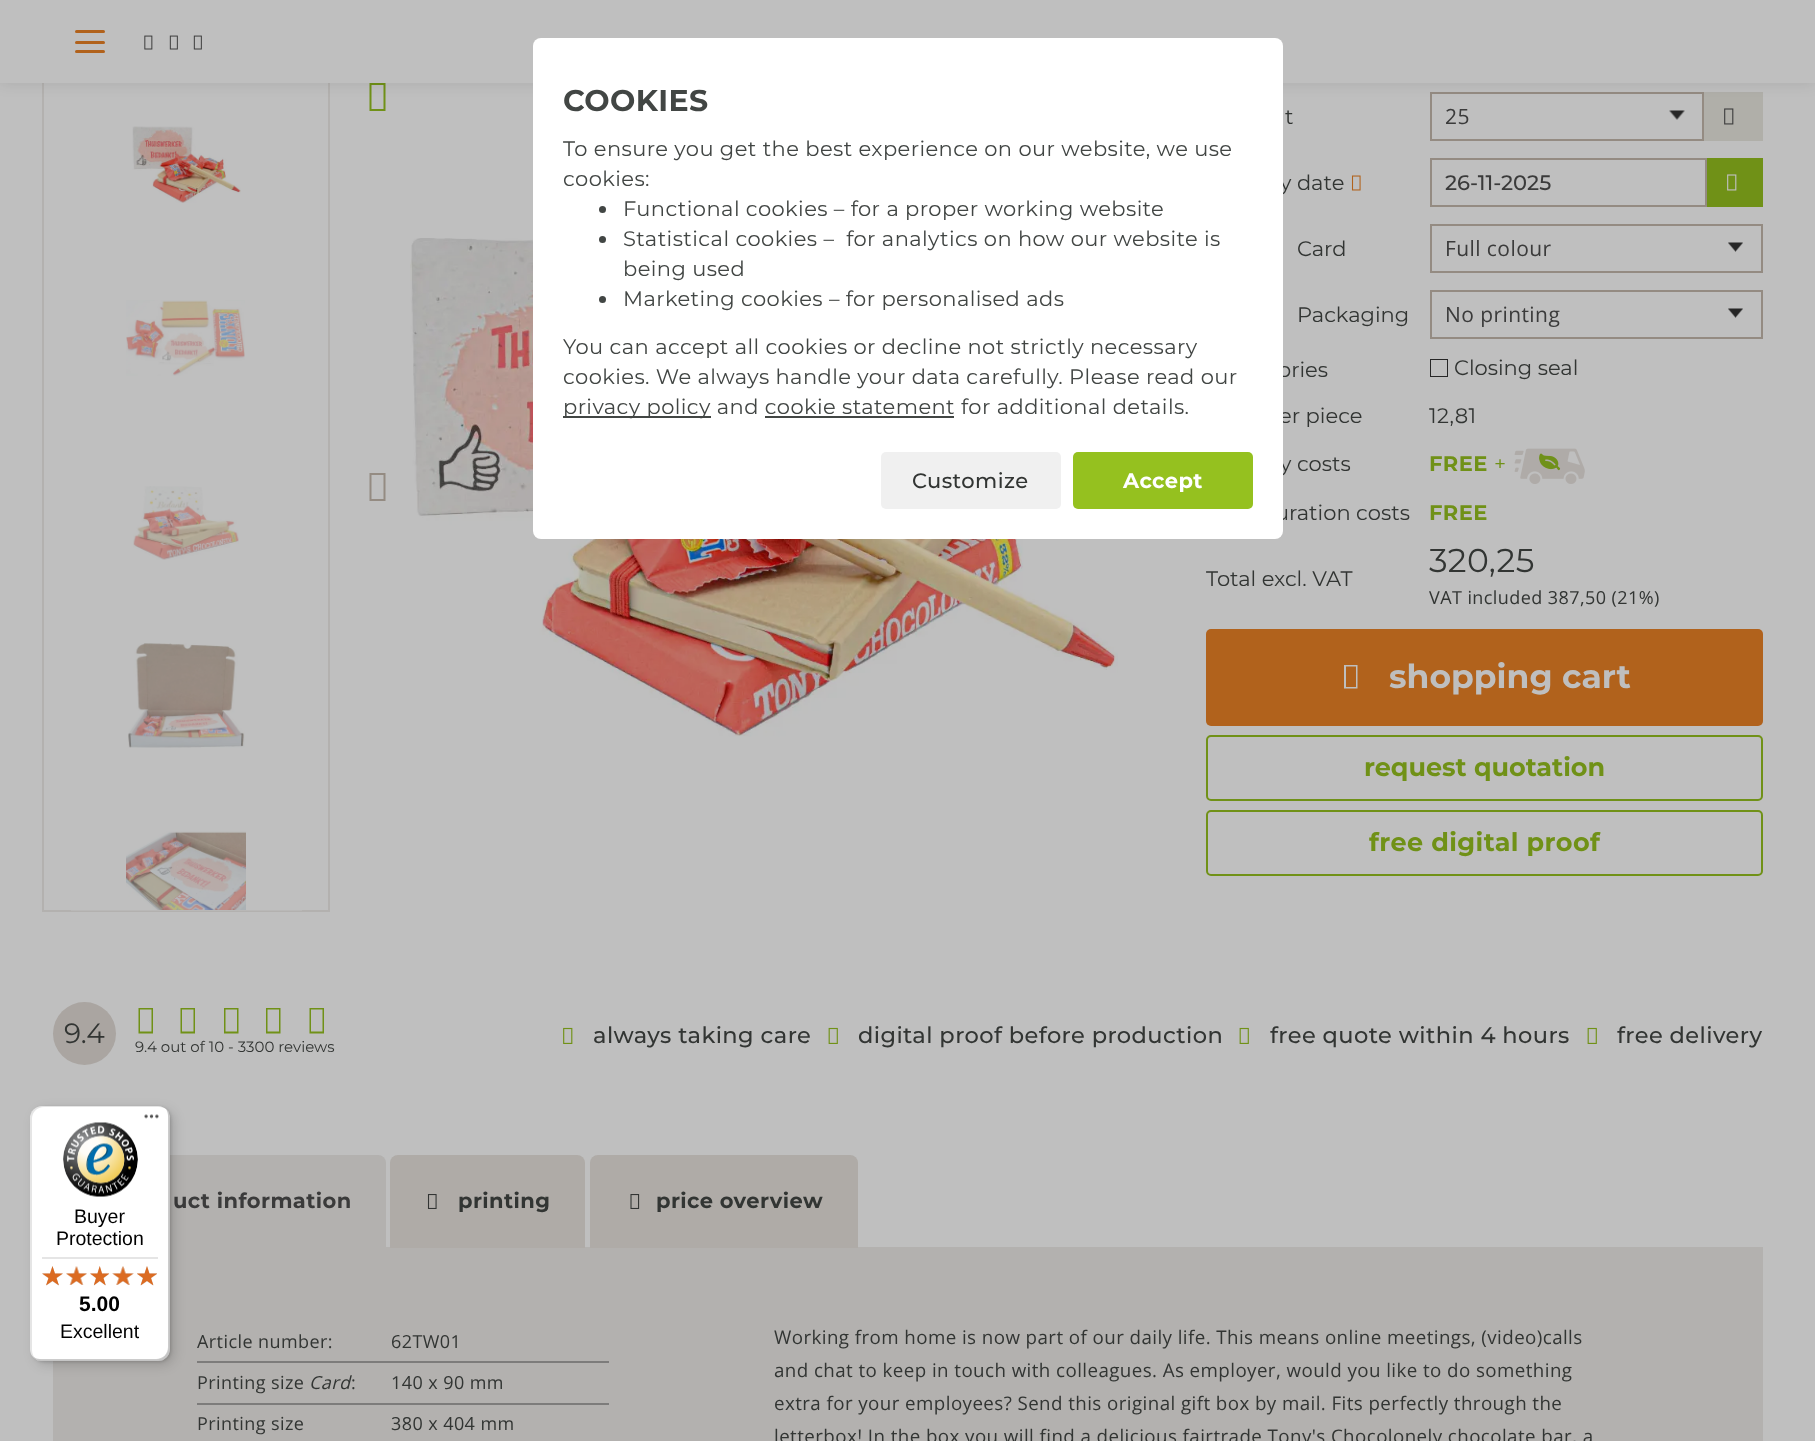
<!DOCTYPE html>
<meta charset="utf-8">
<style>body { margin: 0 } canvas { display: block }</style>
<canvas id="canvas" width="1815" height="1441"></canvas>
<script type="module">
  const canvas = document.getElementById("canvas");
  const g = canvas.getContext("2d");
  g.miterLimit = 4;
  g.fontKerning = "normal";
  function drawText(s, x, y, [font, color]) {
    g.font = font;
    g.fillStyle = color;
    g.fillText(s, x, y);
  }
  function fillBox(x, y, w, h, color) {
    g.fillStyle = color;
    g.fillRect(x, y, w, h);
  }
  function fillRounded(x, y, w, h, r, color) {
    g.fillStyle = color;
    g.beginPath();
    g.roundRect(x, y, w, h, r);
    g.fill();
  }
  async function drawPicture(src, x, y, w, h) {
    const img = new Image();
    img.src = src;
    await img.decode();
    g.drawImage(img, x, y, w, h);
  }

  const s1 = ["21px Montserrat", "#323533"];
  const s2 = ["bold 30px Montserrat", "#424644"];
  const s3 = ["21px Montserrat", "#424644"];
  const s4 = ["500 21px Montserrat", "#323533"];
  const s5 = ["bold 21px Montserrat", "#FFFFFF"];
  const s6 = ["21px Open Sans", "#3B3B3B"];
  const s7 = ["500 21px Montserrat", "#3B3B3B"];
  const s8 = ["bold 21px Montserrat", "#709117"];
  const s9 = ["21px Montserrat", "#709117"];
  const s10 = ["33px Montserrat", "#323533"];
  const s11 = ["18px Open Sans", "#323533"];
  const s12 = ["bold 33px Montserrat", "#BFBFBF"];
  const s13 = ["bold 25.5px Montserrat", "#709117"];
  const s14 = ["28px Montserrat", "#323533"];
  const s15 = ["15px Montserrat", "#323533"];
  const s16 = ["500 22.5px Montserrat", "#323533"];
  const s17 = ["bold 21px Montserrat", "#3B3B3B"];
  const s18 = ["bold 21px Montserrat", "#323533"];
  const s19 = ["italic 18px Open Sans", "#323533"];
  const s20 = ["18.75px Open Sans", "#323533"];
  const s21 = ["19.5px Liberation Sans", "#000000"];
  const s22 = ["bold 21px Liberation Sans", "#000000"];

  fillBox(0, 0, 1815, 1441, "#BFBFBF");
  g.strokeStyle = "#B3B1AF";
  g.lineWidth = 2;
  g.strokeRect(43, 63, 286, 848);
  g.fillStyle = "#709117";
  g.beginPath();
  g.moveTo(369.5, 111);
  g.lineTo(369.5, 83);
  g.lineTo(385.5, 83);
  g.lineTo(385.5, 111);
  g.closePath();
  g.moveTo(371.5, 109);
  g.lineTo(383.5, 109);
  g.lineTo(383.5, 85);
  g.lineTo(371.5, 85);
  g.closePath();
  g.fill();
  await drawPicture("pic9.png", 1669, 110, 16, 10);
  g.strokeStyle = "#948B82";
  g.strokeRect(1431, 93, 272, 47);
  fillBox(1704, 92, 59, 49, "#B0AFA9");
  g.fillStyle = "rgba(0, 0, 0, 0.1)";
  g.filter = "blur(7.5px)";
  g.beginPath();
  g.rect(0, 0, 1815, 83);
  g.fill();
  g.filter = "none";
  fillBox(0, 0, 1815, 83, "#BFBFBF");
  fillRounded(75, 30, 30, 3, 1.5, "#B1621C");
  fillRounded(75, 41, 30, 3, 1.5, "#B1621C");
  fillRounded(75, 50, 30, 3, 1.5, "#B1621C");
  await drawPicture("pic1.png", 144, 35, 9, 15);
  await drawPicture("pic2.png", 169, 35, 9, 15);
  await drawPicture("pic2.png", 193, 35, 9, 15);
  await drawPicture("pic8.png", 410, 238, 708, 499);
  drawText("y date", 1280, 190, s1);
  drawText("ories", 1278, 377, s1);
  drawText("er piece", 1279, 423, s1);
  drawText("y costs", 1280, 471, s1);
  drawText("uration costs", 1275, 520, s1);
  fillRounded(533, 38, 750, 501, 8, "#FFFFFF");
  g.letterSpacing = "0.42px";
  drawText("COOKIES", 563, 111, s2);
  drawText("To ensure you get the best experience on our website, we use", 563, 156, s3);
  drawText("cookies:", 563, 186, s3);
  g.beginPath();
  g.arc(602.5, 209.5, 3.5, 0, Math.PI * 2);
  g.fill();
  drawText("Functional cookies – for a proper working website", 623, 216, s3);
  g.beginPath();
  g.arc(602.5, 239.5, 3.5, 0, Math.PI * 2);
  g.fill();
  drawText("Statistical cookies –  for analytics on how our website is", 623, 246, s3);
  drawText("being used", 623, 276, s3);
  g.beginPath();
  g.arc(602.5, 299.5, 3.5, 0, Math.PI * 2);
  g.fill();
  drawText("Marketing cookies – for personalised ads", 623, 306, s3);
  drawText("You can accept all cookies or decline not strictly necessary", 563, 354, s3);
  drawText("cookies. We always handle your data carefully. Please read our", 563, 384, s3);
  fillBox(563, 416, 148, 2, "#424644");
  drawText("privacy policy and cookie statement for additional details.", 563, 414, s3);
  fillBox(765, 416, 189, 2, "#424644");
  fillRounded(881, 452, 180, 57, 5, "#F0F0F0");
  drawText("Customize", 912, 488, s4);
  fillRounded(1073, 452, 180, 57, 5, "#95C11F");
  drawText("Accept", 1123, 488, s5);
  await drawPicture("pic3.png", 132, 126, 109, 77);
  await drawPicture("pic4.png", 126, 300, 119, 76);
  await drawPicture("pic5.png", 133, 486, 106, 74);
  await drawPicture("pic6.png", 128, 643, 117, 105);
  fillBox(71, 910, 231, 1, "rgba(191, 191, 191, 0.5)");
  await drawPicture("pic7.png", 126, 831, 120, 79);
  g.fillStyle = "#948B82";
  g.beginPath();
  g.moveTo(369.5, 501);
  g.lineTo(369.5, 473);
  g.lineTo(385.5, 473);
  g.lineTo(385.5, 501);
  g.closePath();
  g.moveTo(371.5, 499);
  g.lineTo(383.5, 499);
  g.lineTo(383.5, 475);
  g.lineTo(371.5, 475);
  g.closePath();
  g.fill();
  g.letterSpacing = "0px";
  drawText("t", 1285, 124, s1);
  g.letterSpacing = "0.42px";
  drawText("25", 1445, 124, s6);
  await drawPicture("pic10.png", 1724, 108, 10, 17);
  await drawPicture("pic11.png", 1351, 175, 10, 16);
  g.strokeRect(1431, 159, 275, 47);
  g.letterSpacing = "0px";
  drawText("26-11-2025", 1445, 190, s7);
  fillBox(1707, 158, 56, 49, "#709117");
  await drawPicture("pic12.png", 1727, 174, 10, 17);
  drawText("Card", 1297, 256, s1);
  await drawPicture("pic13.png", 1728, 242, 15, 10);
  g.strokeRect(1431, 225, 331, 47);
  g.letterSpacing = "0.42px";
  drawText("Full colour", 1445, 256, s6);
  g.letterSpacing = "0px";
  drawText("Packaging", 1297, 322, s1);
  await drawPicture("pic13.png", 1728, 308, 15, 10);
  g.strokeRect(1431, 291, 331, 47);
  g.letterSpacing = "0.42px";
  drawText("No printing", 1445, 322, s6);
  g.strokeStyle = "#262626";
  g.lineWidth = 1;
  g.strokeRect(1430.5, 359.5, 17, 17);
  g.letterSpacing = "0px";
  drawText("Closing seal", 1454, 375, s1);
  g.letterSpacing = "0.42px";
  drawText("12,81", 1429, 423, s1);
  drawText("FREE", 1429, 471, s8);
  drawText("+", 1494, 471, s9);
  await drawPicture("pic14.png", 1514, 448, 71, 36);
  drawText("FREE", 1429, 520, s8);
  g.letterSpacing = "0px";
  drawText("Total excl. VAT", 1206, 586, s1);
  g.letterSpacing = "0.42px";
  drawText("320,25", 1429, 572, s10);
  drawText("VAT included 387,50 (21%)", 1429, 604, s11);
  fillRounded(1206, 629, 557, 97, 5, "#B1621C");
  g.fillStyle = "#BFBFBF";
  g.beginPath();
  g.moveTo(1344, 688.5);
  g.lineTo(1344, 665);
  g.lineTo(1357.5, 665);
  g.lineTo(1357.5, 688.5);
  g.closePath();
  g.moveTo(1346, 687);
  g.lineTo(1356, 687);
  g.lineTo(1356, 666.5);
  g.lineTo(1346, 666.5);
  g.closePath();
  g.fill();
  g.letterSpacing = "0px";
  drawText("shopping cart", 1389, 688, s12);
  g.beginPath();
  g.roundRect(1207, 736, 555, 64, 4);
  g.strokeStyle = "#709117";
  g.lineWidth = 2;
  g.stroke();
  drawText("request quotation", 1364, 776, s13);
  g.beginPath();
  g.roundRect(1207, 811, 555, 64, 4);
  g.stroke();
  g.letterSpacing = "0.42px";
  drawText("free digital proof", 1369, 851, s13);
  g.fillStyle = "#AAA5A1";
  g.beginPath();
  g.arc(84.5, 1033.5, 31.5, 0, Math.PI * 2);
  g.fill();
  g.letterSpacing = "0px";
  drawText("9.4", 64, 1043, s14);
  g.fillStyle = "#709117";
  g.beginPath();
  g.moveTo(138.5, 1033.5);
  g.lineTo(138.5, 1008);
  g.lineTo(153, 1008);
  g.lineTo(153, 1033.5);
  g.closePath();
  g.moveTo(140, 1031.5);
  g.lineTo(151.5, 1031.5);
  g.lineTo(151.5, 1009.5);
  g.lineTo(140, 1009.5);
  g.closePath();
  g.moveTo(180.5, 1033.5);
  g.lineTo(180.5, 1008);
  g.lineTo(195, 1008);
  g.lineTo(195, 1033.5);
  g.closePath();
  g.moveTo(182, 1031.5);
  g.lineTo(193.5, 1031.5);
  g.lineTo(193.5, 1009.5);
  g.lineTo(182, 1009.5);
  g.closePath();
  g.fill();
  g.beginPath();
  g.moveTo(224, 1033.5);
  g.lineTo(224, 1008);
  g.lineTo(238.5, 1008);
  g.lineTo(238.5, 1033.5);
  g.closePath();
  g.moveTo(225.5, 1031.5);
  g.lineTo(237, 1031.5);
  g.lineTo(237, 1009.5);
  g.lineTo(225.5, 1009.5);
  g.closePath();
  g.moveTo(266, 1033.5);
  g.lineTo(266, 1008);
  g.lineTo(280.5, 1008);
  g.lineTo(280.5, 1033.5);
  g.closePath();
  g.moveTo(267.5, 1031.5);
  g.lineTo(279, 1031.5);
  g.lineTo(279, 1009.5);
  g.lineTo(267.5, 1009.5);
  g.closePath();
  g.fill();
  g.beginPath();
  g.moveTo(309.5, 1033.5);
  g.lineTo(309.5, 1008);
  g.lineTo(324, 1008);
  g.lineTo(324, 1033.5);
  g.closePath();
  g.moveTo(311, 1031.5);
  g.lineTo(322.5, 1031.5);
  g.lineTo(322.5, 1009.5);
  g.lineTo(311, 1009.5);
  g.closePath();
  g.fill();
  drawText("9.4 out of 10 - 3300 reviews", 135, 1052, s15);
  await drawPicture("pic15.png", 563, 1027, 10, 17);
  g.letterSpacing = "0.42px";
  drawText("always taking care", 593, 1043, s16);
  await drawPicture("pic16.png", 828, 1027, 10, 17);
  drawText("digital proof before production", 858, 1043, s16);
  await drawPicture("pic16.png", 1239, 1027, 10, 17);
  drawText("free quote within 4 hours", 1270, 1043, s16);
  await drawPicture("pic16.png", 1587, 1027, 10, 17);
  drawText("free delivery", 1617, 1043, s16);
  fillBox(53, 1247, 1710, 194, "#B3B1AF");
  g.beginPath();
  g.roundRect(53, 1155, 333, 93, [8, 8, 0, 0]);
  g.fill();
  drawText("uct information", 173, 1208, s17);
  g.fillStyle = "#AFABA7";
  g.beginPath();
  g.roundRect(390, 1155, 195, 93, [8, 8, 0, 0]);
  g.fill();
  await drawPicture("pic17.png", 427, 1194, 10, 15);
  drawText("printing", 458, 1208, s18);
  g.fillStyle = "#AFABA7";
  g.beginPath();
  g.roundRect(590, 1155, 268, 93, [8, 8, 0, 0]);
  g.fill();
  await drawPicture("pic18.png", 630, 1194, 10, 15);
  drawText("price overview", 656, 1208, s18);
  drawText("Article number:", 197, 1348, s11);
  fillBox(197, 1361, 412, 2, "#7D7C7B");
  drawText("62TW01", 391, 1348, s11);
  drawText("Printing size", 197, 1389, s11);
  drawText("Card", 309, 1389, s19);
  drawText(":", 351, 1389, s11);
  fillBox(197, 1403, 412, 2, "#7D7C7B");
  drawText("140 x 90 mm", 391, 1389, s11);
  drawText("Printing size", 197, 1430, s11);
  drawText("380 x 404 mm", 391, 1430, s11);
  drawText("Working from home is now part of our daily life. This means online meetings, (video)calls", 774, 1344, s20);
  drawText("and chat to keep in touch with colleagues. As employer, would you like to do something", 774, 1377, s20);
  drawText("extra for your employees? Send this original gift box by mail. Fits perfectly through the", 774, 1410, s20);
  drawText("letterbox! In the box you will find a delicious fairtrade Tony's Chocolonely chocolate bar, a", 774, 1443, s20);
  g.fillStyle = "rgba(0, 0, 0, 0.15)";
  g.filter = "blur(6px)";
  g.beginPath();
  g.roundRect(35, 1110, 139, 255, 12);
  g.fill();
  g.filter = "none";
  g.filter = "blur(1.5px)";
  g.beginPath();
  g.roundRect(32, 1107, 139, 255, 12);
  g.fill();
  g.filter = "none";
  fillRounded(30, 1106, 140, 255, 12, "#FFFFFF");
  g.fillStyle = "rgba(0, 0, 0, 0.1)";
  g.beginPath();
  g.moveTo(44, 1107);
  g.lineTo(159, 1107);
  g.bezierCurveTo(162, 1107, 164, 1108, 166, 1109);
  g.bezierCurveTo(164, 1107, 161, 1106, 158, 1106);
  g.lineTo(42, 1106);
  g.bezierCurveTo(35, 1106, 30, 1111, 30, 1118);
  g.lineTo(30, 1349);
  g.bezierCurveTo(30, 1354, 33, 1358, 37, 1360);
  g.bezierCurveTo(34, 1358, 32, 1354, 32, 1350);
  g.lineTo(32, 1119);
  g.bezierCurveTo(32, 1112, 37, 1107, 44, 1107);
  g.closePath();
  g.fill();
  g.fillStyle = "rgba(0, 0, 0, 0.2)";
  g.beginPath();
  g.moveTo(32, 1356);
  g.bezierCurveTo(35, 1359, 38, 1361, 42, 1361);
  g.lineTo(158, 1361);
  g.bezierCurveTo(165, 1361, 170, 1356, 170, 1349);
  g.lineTo(170, 1118);
  g.bezierCurveTo(170, 1114, 168, 1111, 166, 1109);
  g.bezierCurveTo(167, 1111, 168, 1113, 168, 1116);
  g.lineTo(168, 1347);
  g.bezierCurveTo(168, 1354, 163, 1359, 156, 1359);
  g.lineTo(40, 1359);
  g.bezierCurveTo(37, 1359, 35, 1358, 32, 1356);
  g.closePath();
  g.fill();
  g.fillStyle = "rgba(50, 50, 50, 0.2)";
  g.beginPath();
  g.moveTo(33, 1357);
  g.bezierCurveTo(35, 1359, 38, 1361, 42, 1361);
  g.lineTo(158, 1361);
  g.bezierCurveTo(165, 1361, 170, 1356, 170, 1349);
  g.lineTo(170, 1118);
  g.bezierCurveTo(170, 1114, 168, 1111, 166, 1109);
  g.bezierCurveTo(168, 1111, 169, 1114, 169, 1117);
  g.lineTo(169, 1348);
  g.bezierCurveTo(169, 1354, 163, 1360, 157, 1360);
  g.lineTo(41, 1360);
  g.bezierCurveTo(38, 1360, 35, 1359, 33, 1357);
  g.closePath();
  g.fill();
  g.fillStyle = "rgba(255, 255, 255, 0.3)";
  g.beginPath();
  g.moveTo(32, 1355);
  g.bezierCurveTo(34, 1359, 37, 1361, 42, 1361);
  g.lineTo(158, 1361);
  g.bezierCurveTo(165, 1361, 170, 1356, 170, 1349);
  g.lineTo(170, 1118);
  g.bezierCurveTo(170, 1114, 168, 1111, 166, 1109);
  g.bezierCurveTo(168, 1111, 169, 1114, 169, 1117);
  g.lineTo(169, 1348);
  g.bezierCurveTo(169, 1354, 163, 1360, 157, 1360);
  g.lineTo(41, 1360);
  g.bezierCurveTo(37, 1360, 34, 1358, 32, 1355);
  g.closePath();
  g.fill();
  await drawPicture("pic19.png", 144, 1114, 15, 5);
  await drawPicture("pic20.png", 63, 1122, 75, 75);
  g.letterSpacing = "0px";
  drawText("Buyer", 74, 1223, s21);
  drawText("Protection", 56, 1245, s21);
  fillBox(42, 1257, 116, 2, "#E5E5E5");
  await drawPicture("pic21.png", 42, 1266, 21, 20);
  await drawPicture("pic22.png", 66, 1266, 21, 19);
  await drawPicture("pic23.png", 90, 1266, 19, 20);
  await drawPicture("pic24.png", 112, 1266, 22, 19);
  await drawPicture("pic25.png", 137, 1266, 20, 20);
  await drawPicture("pic26.png", 42, 1266, 21, 20);
  await drawPicture("pic27.png", 66, 1266, 21, 19);
  await drawPicture("pic28.png", 90, 1266, 20, 20);
  await drawPicture("pic29.png", 112, 1266, 22, 19);
  await drawPicture("pic30.png", 137, 1266, 20, 20);
  drawText("5.00", 79, 1311, s22);
  drawText("Excellent", 60, 1338, s21);
</script>
